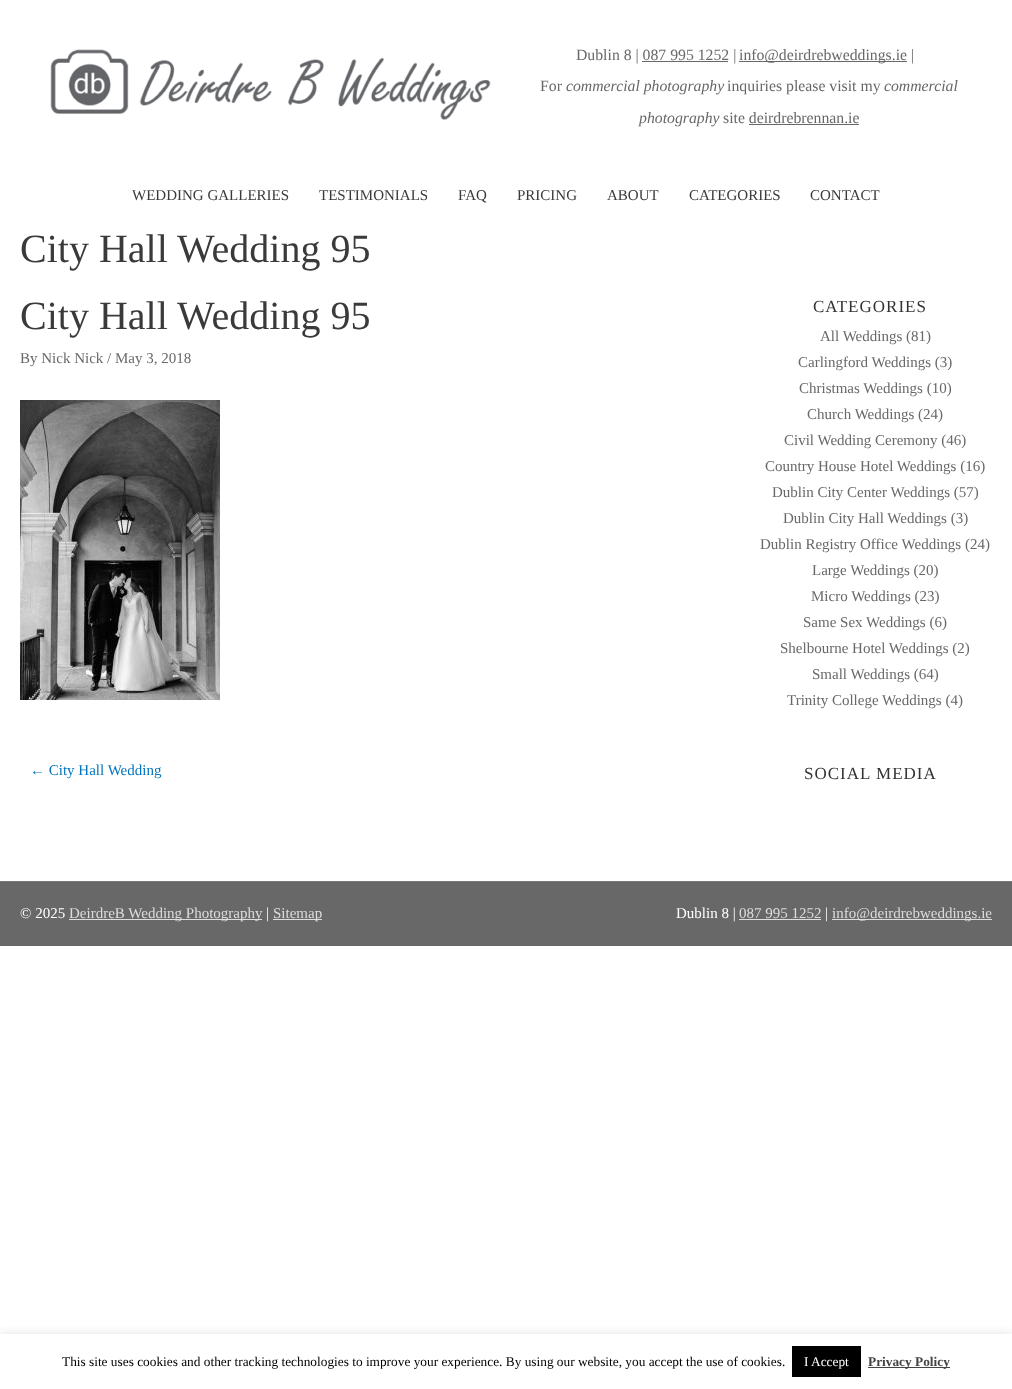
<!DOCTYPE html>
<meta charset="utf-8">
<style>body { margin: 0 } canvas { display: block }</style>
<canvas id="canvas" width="1012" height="1389"></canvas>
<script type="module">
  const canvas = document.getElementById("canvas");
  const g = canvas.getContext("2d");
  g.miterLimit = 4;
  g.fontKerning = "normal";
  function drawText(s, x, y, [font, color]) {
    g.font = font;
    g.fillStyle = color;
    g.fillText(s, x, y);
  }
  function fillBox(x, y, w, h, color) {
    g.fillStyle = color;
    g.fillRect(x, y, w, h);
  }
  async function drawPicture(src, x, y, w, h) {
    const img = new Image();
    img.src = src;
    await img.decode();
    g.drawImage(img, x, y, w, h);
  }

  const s1 = ["15.75px Liberation Serif", "#686868"];
  const s2 = ["italic 15.75px Liberation Serif", "#686868"];
  const s3 = ["15px Liberation Serif", "#3A3A3A"];
  const s4 = ["40px Liberation Serif", "#3A3A3A"];
  const s5 = ["15px Liberation Serif", "#686868"];
  const s6 = ["15px Liberation Serif", "#0274BE"];
  const s7 = ["17px Liberation Serif", "#333333"];
  const s8 = ["15px Liberation Serif", "#FFFFFF"];
  const s9 = ["15px Liberation Serif", "#DDDDDD"];
  const s10 = ["13.33px Liberation Serif", "#000000"];
  const s11 = ["13.33px Liberation Serif", "#FFFFFF"];
  const s12 = ["bold 13.33px Liberation Serif", "#444444"];

  fillBox(0, 0, 1012, 1389, "#FFFFFF");
  await drawPicture("pic1.png", 50, 49, 441, 71);
  drawText("Dublin 8 | 087 995 1252 |", 576, 60, s1);
  fillBox(739, 61, 168, 1, "#686868");
  drawText("info@deirdrebweddings.ie |", 739, 60, s1);
  fillBox(642, 61, 86, 1, "#686868");
  drawText("For", 540, 91, s1);
  drawText("commercial photography", 566, 91, s2);
  drawText("inquiries please visit my", 727, 91, s1);
  drawText("commercial", 884, 91, s2);
  drawText("photography", 639, 123, s2);
  drawText("site deirdrebrennan.ie", 723, 123, s1);
  fillBox(749, 124, 110, 1, "#686868");
  drawText("WEDDING GALLERIES", 132, 200, s3);
  drawText("TESTIMONIALS", 319, 200, s3);
  drawText("FAQ", 458, 200, s3);
  drawText("PRICING", 517, 200, s3);
  drawText("ABOUT", 607, 200, s3);
  drawText("CATEGORIES", 689, 200, s3);
  drawText("CONTACT", 810, 200, s3);
  drawText("City Hall Wedding 95", 20, 262, s4);
  drawText("City Hall Wedding 95", 20, 329, s4);
  drawText("By Nick Nick / May 3, 2018", 20, 363, s5);
  await drawPicture("pic2.png", 20, 400, 200, 300);
  drawText("← City Hall Wedding", 30, 775, s6);
  g.letterSpacing = "1px";
  drawText("CATEGORIES", 813, 312, s7);
  g.letterSpacing = "0px";
  drawText("All Weddings (81)", 820, 341, s5);
  drawText("Carlingford Weddings (3)", 798, 367, s5);
  drawText("Christmas Weddings (10)", 799, 393, s5);
  drawText("Church Weddings (24)", 807, 419, s5);
  drawText("Civil Wedding Ceremony (46)", 784, 445, s5);
  drawText("Country House Hotel Weddings (16)", 765, 471, s5);
  drawText("Dublin City Center Weddings (57)", 772, 497, s5);
  drawText("Dublin City Hall Weddings (3)", 783, 523, s5);
  drawText("Dublin Registry Office Weddings (24)", 760, 549, s5);
  drawText("Large Weddings (20)", 812, 575, s5);
  drawText("Micro Weddings (23)", 811, 601, s5);
  drawText("Same Sex Weddings (6)", 803, 627, s5);
  drawText("Shelbourne Hotel Weddings (2)", 780, 653, s5);
  drawText("Small Weddings (64)", 812, 679, s5);
  drawText("Trinity College Weddings (4)", 787, 705, s5);
  g.letterSpacing = "1px";
  drawText("SOCIAL MEDIA", 804, 779, s7);
  fillBox(0, 881, 1012, 1, "#7A7A7A");
  fillBox(0, 882, 1012, 64, "#686868");
  g.letterSpacing = "0px";
  drawText("© 2025", 20, 918, s8);
  fillBox(69, 919, 193, 1, "#DDDDDD");
  drawText("DeirdreB Wedding Photography", 69, 918, s9);
  drawText("|", 266, 918, s8);
  fillBox(273, 919, 49, 1, "#DDDDDD");
  drawText("Sitemap", 273, 918, s9);
  drawText("Dublin 8 |", 676, 918, s8);
  drawText("087 995 1252", 739, 918, s9);
  fillBox(739, 919, 82, 1, "#DDDDDD");
  drawText("|", 825, 918, s8);
  fillBox(832, 919, 160, 1, "#DDDDDD");
  drawText("info@deirdrebweddings.ie", 832, 918, s9);
  g.save();
  g.beginPath();
  g.rect(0, 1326, 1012, 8);
  g.clip();
  g.fillStyle = "rgba(172, 171, 171, 0.3)";
  g.filter = "blur(5px)";
  g.beginPath();
  g.rect(0, 1333, 1012, 55);
  g.fill();
  g.filter = "none";
  g.restore();
  drawText("This site uses cookies and other tracking technologies to improve your experience. By using our website, you accept the use of cookies.", 62, 1366, s10);
  fillBox(792, 1346, 69, 31, "#000000");
  drawText("I Accept", 804, 1366, s11);
  fillBox(868, 1367, 82, 1, "#444444");
  drawText("Privacy Policy", 868, 1366, s12);
</script>
